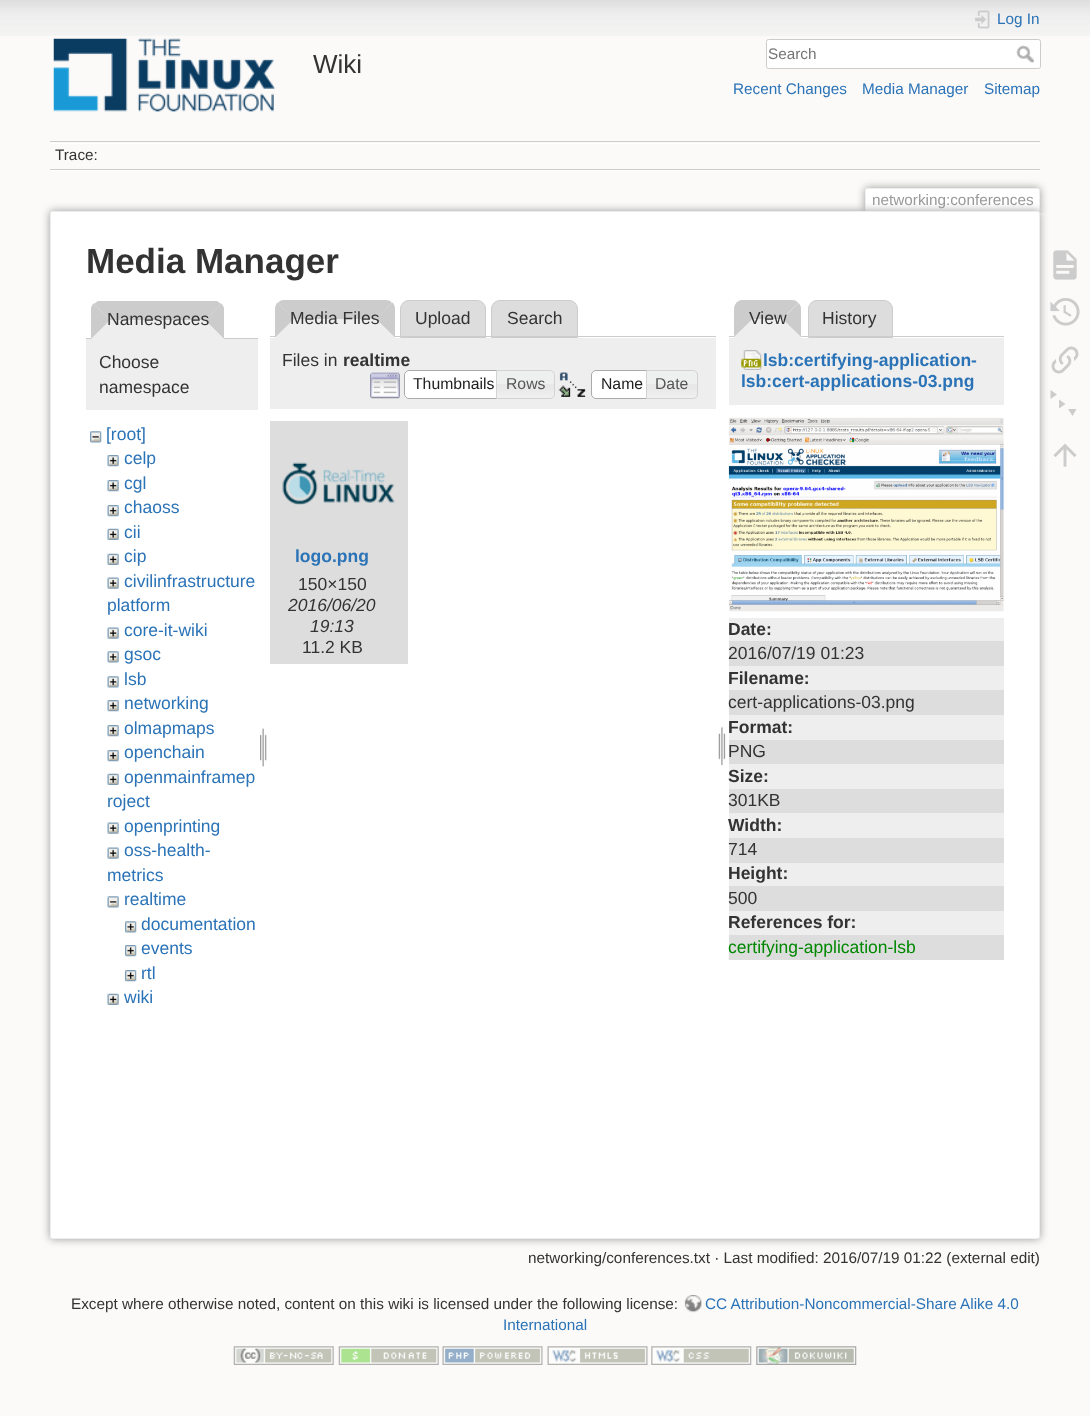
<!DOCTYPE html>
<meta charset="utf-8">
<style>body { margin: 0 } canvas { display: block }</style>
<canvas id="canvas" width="1090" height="1416"></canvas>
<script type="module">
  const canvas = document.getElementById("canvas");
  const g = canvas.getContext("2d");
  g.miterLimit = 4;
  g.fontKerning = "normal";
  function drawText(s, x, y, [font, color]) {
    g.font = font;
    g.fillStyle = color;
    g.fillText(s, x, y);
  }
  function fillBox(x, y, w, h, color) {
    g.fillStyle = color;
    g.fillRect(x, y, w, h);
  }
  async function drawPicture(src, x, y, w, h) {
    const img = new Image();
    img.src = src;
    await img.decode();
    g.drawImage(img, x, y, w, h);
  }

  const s1 = ["26px Liberation Sans", "#333333"];
  const s2 = ["15.3px Liberation Sans", "#2B73B7"];
  const s3 = ["15.3px Liberation Sans", "#757575"];
  const s4 = ["15.3px Liberation Sans", "#333333"];
  const s5 = ["15.3px Liberation Sans", "#999999"];
  const s6 = ["bold 35px Liberation Sans", "#333333"];
  const s7 = ["17.5px Liberation Sans", "#333333"];
  const s8 = ["17.5px Liberation Sans", "#2B73B7"];
  const s9 = ["bold 17.5px Liberation Sans", "#333333"];
  const s10 = ["15.75px Liberation Sans", "#212121"];
  const s11 = ["15.75px Liberation Sans", "#555555"];
  const s12 = ["bold 17.5px Liberation Sans", "#2B73B7"];
  const s13 = ["italic 17.5px Liberation Sans", "#333333"];
  const s14 = ["17.5px Liberation Sans", "#008800"];

  fillBox(0, 0, 1090, 1416, "#FBFAF9");
  await drawPicture("pic1.png", 0, 0, 1090, 36);
  await drawPicture("pic2.png", 53, 38, 223, 74);
  drawText("Wiki", 313, 73, s1);
  await drawPicture("pic3.png", 975, 10, 15, 19);
  drawText("Log In", 997, 24, s2);
  g.fillStyle = "#FFFFFF";
  g.beginPath();
  g.roundRect(766.5, 39.5, 274, 29, 2);
  g.fill();
  g.strokeStyle = "#CCCCCC";
  g.stroke();
  drawText("Search", 768, 59, s3);
  await drawPicture("pic4.png", 1016, 45, 18, 18);
  drawText("Recent Changes", 733, 94, s2);
  drawText("Media Manager", 862, 94, s2);
  drawText("Sitemap", 984, 94, s2);
  fillBox(50, 141, 990, 1, "#CCCCCC");
  fillBox(50, 170, 990, 1, "#FFFFFF");
  fillBox(50, 143, 990, 1, "#FFFFFF");
  fillBox(50, 169, 990, 1, "#CCCCCC");
  drawText("Trace:", 55, 160, s4);
  g.save();
  g.beginPath();
  g.rect(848, 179, 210, 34);
  g.clip();
  g.fillStyle = "#999999";
  g.filter = "blur(4px)";
  g.beginPath();
  g.roundRect(865, 188, 175, 25, 2.5);
  g.fill();
  g.filter = "none";
  g.restore();
  g.fillStyle = "#FFFFFF";
  g.beginPath();
  g.roundRect(866, 189, 173, 24, [1, 1, 0, 0]);
  g.fill();
  fillBox(866, 188, 173, 1, "#EEEEEE");
  fillBox(1039, 189, 1, 24, "#EEEEEE");
  fillBox(865, 189, 1, 24, "#EEEEEE");
  drawText("networking:conferences", 872, 205, s5);
  g.filter = "blur(4.5px)";
  g.beginPath();
  g.roundRect(50, 211, 990, 1028, 2.5);
  g.fill();
  g.filter = "none";
  g.fillStyle = "#FFFFFF";
  g.beginPath();
  g.roundRect(50.5, 211.5, 989, 1027, 2);
  g.fill();
  g.strokeStyle = "#EEEEEE";
  g.stroke();
  drawText("Media Manager", 86, 273, s6);
  fillBox(86, 338, 172, 1, "#CCCCCC");
  g.fillStyle = "#EEEEEE";
  g.beginPath();
  g.roundRect(91, 301, 133, 38, [9, 9, 0, 0]);
  g.fill();
  g.fillStyle = "#CCCCCC";
  g.beginPath();
  g.moveTo(217, 301);
  g.lineTo(98, 301);
  g.lineTo(94, 304);
  g.lineTo(110, 320);
  g.lineTo(205, 320);
  g.lineTo(221, 304);
  g.closePath();
  g.fill();
  g.beginPath();
  g.moveTo(221.5, 303.5);
  g.lineTo(205, 320);
  g.lineTo(224, 339);
  g.lineTo(224, 308);
  g.bezierCurveTo(223.5, 306, 222.5, 305, 221.5, 303.5);
  g.closePath();
  g.fill();
  g.fillStyle = "#EEEEEE";
  g.beginPath();
  g.moveTo(224, 339);
  g.lineTo(205, 320);
  g.lineTo(110, 320);
  g.lineTo(91, 339);
  g.closePath();
  g.fill();
  g.fillStyle = "#CCCCCC";
  g.beginPath();
  g.moveTo(91, 339);
  g.lineTo(110, 320);
  g.lineTo(93.5, 303.5);
  g.bezierCurveTo(92.5, 305, 91.5, 306, 91, 308);
  g.closePath();
  g.fill();
  drawText("Namespaces", 107, 325, s7);
  fillBox(86, 339, 172, 71, "#EEEEEE");
  drawText("Choose", 99, 368, s7);
  drawText("namespace", 99, 393, s7);
  await drawPicture("pic5.png", 90, 431, 12, 12);
  drawText("[root]", 106, 440, s8);
  await drawPicture("pic6.png", 107, 455, 12, 12);
  drawText("celp", 124, 464, s8);
  await drawPicture("pic6.png", 107, 480, 12, 12);
  drawText("cgl", 124, 489, s8);
  await drawPicture("pic6.png", 107, 505, 12, 12);
  drawText("chaoss", 124, 513, s8);
  await drawPicture("pic7.png", 107, 528, 12, 12);
  drawText("cii", 124, 538, s8);
  await drawPicture("pic7.png", 107, 553, 12, 12);
  drawText("cip", 124, 562, s8);
  await drawPicture("pic8.png", 107, 577, 12, 12);
  drawText("civilinfrastructure", 124, 587, s8);
  drawText("platform", 107, 611, s8);
  await drawPicture("pic8.png", 107, 627, 12, 12);
  drawText("core-it-wiki", 124, 636, s8);
  await drawPicture("pic9.png", 107, 651, 12, 12);
  drawText("gsoc", 124, 660, s8);
  await drawPicture("pic9.png", 107, 676, 12, 12);
  drawText("lsb", 124, 685, s8);
  await drawPicture("pic6.png", 107, 700, 12, 12);
  drawText("networking", 124, 709, s8);
  await drawPicture("pic6.png", 107, 725, 12, 12);
  drawText("olmapmaps", 124, 734, s8);
  await drawPicture("pic6.png", 107, 750, 12, 12);
  drawText("openchain", 124, 758, s8);
  await drawPicture("pic10.png", 107, 773, 12, 12);
  drawText("openmainframep", 124, 783, s8);
  drawText("roject", 107, 807, s8);
  await drawPicture("pic8.png", 107, 822, 12, 12);
  drawText("openprinting", 124, 832, s8);
  await drawPicture("pic8.png", 107, 847, 12, 12);
  drawText("oss-health-", 124, 856, s8);
  drawText("metrics", 107, 881, s8);
  await drawPicture("pic11.png", 107, 896, 12, 12);
  drawText("realtime", 124, 905, s8);
  await drawPicture("pic12.png", 125, 921, 12, 12);
  drawText("documentation", 141, 930, s8);
  await drawPicture("pic13.png", 125, 945, 12, 12);
  drawText("events", 141, 954, s8);
  await drawPicture("pic13.png", 125, 970, 12, 12);
  drawText("rtl", 141, 979, s8);
  await drawPicture("pic7.png", 107, 993, 12, 12);
  drawText("wiki", 124, 1003, s8);
  await drawPicture("pic14.png", 260, 728, 7, 39);
  g.fillStyle = "#DDDDDD";
  g.beginPath();
  g.roundRect(400.5, 300.5, 85, 37, [8.5, 8.5, 0, 0]);
  g.fill();
  g.strokeStyle = "#CCCCCC";
  g.stroke();
  g.beginPath();
  g.roundRect(491.5, 300.5, 86, 37, [8.5, 8.5, 0, 0]);
  g.fill();
  g.stroke();
  fillBox(270, 336, 446, 1, "#CCCCCC");
  g.fillStyle = "#EEEEEE";
  g.beginPath();
  g.roundRect(275, 300, 120, 38, [9, 9, 0, 0]);
  g.fill();
  g.fillStyle = "#CCCCCC";
  g.beginPath();
  g.moveTo(284, 300);
  g.lineTo(386, 300);
  g.bezierCurveTo(388, 300, 391, 301, 392, 303);
  g.lineTo(376, 319);
  g.lineTo(294, 319);
  g.lineTo(278, 303);
  g.bezierCurveTo(279, 301, 282, 300, 284, 300);
  g.closePath();
  g.fill();
  g.beginPath();
  g.moveTo(392.5, 302.5);
  g.lineTo(376, 319);
  g.lineTo(395, 337.5);
  g.lineTo(395, 309);
  g.bezierCurveTo(395, 306.5, 394, 304, 392.5, 302.5);
  g.closePath();
  g.fill();
  g.fillStyle = "#EEEEEE";
  g.beginPath();
  g.moveTo(395, 338);
  g.lineTo(376, 319);
  g.lineTo(294, 319);
  g.lineTo(275, 338);
  g.closePath();
  g.fill();
  g.fillStyle = "#CCCCCC";
  g.beginPath();
  g.moveTo(275, 337.5);
  g.lineTo(294, 319);
  g.lineTo(277.5, 302.5);
  g.bezierCurveTo(276, 304, 275, 306.5, 275, 309);
  g.closePath();
  g.fill();
  drawText("Media Files", 290, 324, s7);
  drawText("Upload", 415, 324, s7);
  drawText("Search", 507, 324, s7);
  fillBox(270, 338, 446, 71, "#EEEEEE");
  drawText("Files in", 282, 366, s7);
  drawText("realtime", 343, 366, s9);
  await drawPicture("pic15.png", 370, 372, 30, 27);
  g.fillStyle = "#FFFFFF";
  g.beginPath();
  g.roundRect(404, 370, 99, 29, [5, 0, 0, 5]);
  g.fill();
  await drawPicture("pic16.png", 404, 370, 3, 28);
  g.beginPath();
  g.roundRect(404.5, 370.5, 98, 28, [4.5, 0, 0, 4.5]);
  g.strokeStyle = "#AAAAAA";
  g.stroke();
  drawText("Thumbnails", 413, 389, s10);
  await drawPicture("pic17.png", 497, 370, 58, 29);
  g.beginPath();
  g.roundRect(496.5, 370.5, 58, 28, [0, 4.5, 4.5, 0]);
  g.strokeStyle = "#D3D3D3";
  g.stroke();
  drawText("Rows", 506, 389, s11);
  await drawPicture("pic18.png", 558, 372, 28, 25);
  g.fillStyle = "#FFFFFF";
  g.beginPath();
  g.roundRect(591.5, 370.5, 61, 28, [4.5, 0, 0, 4.5]);
  g.fill();
  g.strokeStyle = "#AAAAAA";
  g.stroke();
  drawText("Name", 601, 389, s10);
  await drawPicture("pic19.png", 647, 370, 50, 29);
  g.beginPath();
  g.roundRect(646.5, 370.5, 51, 28, [0, 4.5, 4.5, 0]);
  g.strokeStyle = "#D3D3D3";
  g.stroke();
  drawText("Date", 655, 389, s11);
  fillBox(270, 421, 138, 243, "#DDDDDD");
  await drawPicture("pic20.png", 282, 462, 113, 43);
  drawText("logo.png", 295, 562, s12);
  drawText("150×150", 298, 590, s7);
  drawText("2016/06/20", 288, 611, s13);
  drawText("19:13", 310, 632, s13);
  drawText("11.2 KB", 302, 653, s7);
  await drawPicture("pic21.png", 718, 726, 8, 40);
  g.fillStyle = "#DDDDDD";
  g.beginPath();
  g.roundRect(808.5, 300.5, 84, 37, [8.5, 8.5, 0, 0]);
  g.fill();
  g.strokeStyle = "#CCCCCC";
  g.stroke();
  fillBox(729, 336, 275, 1, "#CCCCCC");
  g.fillStyle = "#EEEEEE";
  g.beginPath();
  g.roundRect(734, 300, 67, 38, [9, 9, 0, 0]);
  g.fill();
  g.fillStyle = "#CCCCCC";
  g.beginPath();
  g.moveTo(742, 300);
  g.lineTo(792, 300);
  g.bezierCurveTo(795, 300, 797, 301, 798, 303);
  g.lineTo(782, 319);
  g.lineTo(752, 319);
  g.lineTo(736, 303);
  g.bezierCurveTo(738, 301, 740, 300, 742, 300);
  g.closePath();
  g.fill();
  g.beginPath();
  g.moveTo(798.5, 303);
  g.lineTo(782.5, 319);
  g.lineTo(801, 337);
  g.lineTo(801, 309);
  g.bezierCurveTo(801, 306.5, 800, 304.5, 798.5, 303);
  g.closePath();
  g.fill();
  g.fillStyle = "#EEEEEE";
  g.beginPath();
  g.moveTo(801, 337);
  g.lineTo(782, 319);
  g.lineTo(752, 319);
  g.lineTo(734, 338);
  g.closePath();
  g.fill();
  g.fillStyle = "#CCCCCC";
  g.beginPath();
  g.moveTo(736.5, 302.5);
  g.bezierCurveTo(735, 304.5, 734, 306.5, 734, 309);
  g.lineTo(734, 337);
  g.lineTo(752.5, 319);
  g.closePath();
  g.fill();
  drawText("View", 749, 324, s7);
  drawText("History", 822, 324, s7);
  fillBox(729, 338, 275, 67, "#EEEEEE");
  await drawPicture("pic22.png", 741, 350, 21, 20);
  drawText("lsb:certifying-application-", 763, 366, s12);
  drawText("lsb:cert-applications-03.png", 741, 387, s12);
  await drawPicture("pic23.png", 728, 417, 276, 195);
  fillBox(729, 618, 275, 23, "#EEEEEE");
  drawText("Date:", 728, 635, s9);
  fillBox(729, 641, 275, 25, "#DDDDDD");
  drawText("2016/07/19 01:23", 728, 659, s7);
  fillBox(729, 666, 275, 24, "#EEEEEE");
  drawText("Filename:", 728, 684, s9);
  fillBox(729, 690, 275, 25, "#DDDDDD");
  drawText("cert-applications-03.png", 728, 708, s7);
  fillBox(729, 715, 275, 25, "#EEEEEE");
  drawText("Format:", 728, 733, s9);
  fillBox(729, 740, 275, 24, "#DDDDDD");
  drawText("PNG", 728, 757, s7);
  fillBox(729, 764, 275, 25, "#EEEEEE");
  drawText("Size:", 728, 782, s9);
  fillBox(729, 789, 275, 24, "#DDDDDD");
  drawText("301KB", 728, 806, s7);
  fillBox(729, 813, 275, 25, "#EEEEEE");
  drawText("Width:", 728, 831, s9);
  fillBox(729, 838, 275, 25, "#DDDDDD");
  drawText("714", 728, 855, s7);
  fillBox(729, 863, 275, 23, "#EEEEEE");
  drawText("Height:", 728, 879, s9);
  fillBox(729, 886, 275, 25, "#DDDDDD");
  drawText("500", 728, 904, s7);
  fillBox(729, 911, 275, 24, "#EEEEEE");
  drawText("References for:", 728, 928, s9);
  fillBox(729, 935, 275, 25, "#DDDDDD");
  drawText("certifying-application-lsb", 728, 953, s14);
  drawText("networking/conferences.txt · Last modified: 2016/07/19 01:22 (external edit)", 528, 1263, s4);
  await drawPicture("pic24.png", 1053, 250, 24, 30);
  await drawPicture("pic25.png", 1050, 298, 30, 28);
  await drawPicture("pic26.png", 1051, 346, 28, 28);
  g.fillStyle = "#CCCCCC";
  g.beginPath();
  g.moveTo(1050.5, 390);
  g.lineTo(1057, 394.5);
  g.lineTo(1050.5, 399);
  g.closePath();
  g.moveTo(1059, 399.5);
  g.lineTo(1065.5, 404);
  g.lineTo(1059, 408.5);
  g.closePath();
  g.moveTo(1068, 409);
  g.lineTo(1076.5, 409);
  g.lineTo(1072.5, 416);
  g.closePath();
  g.fill();
  await drawPicture("pic27.png", 1053, 443, 24, 24);
  drawText("Except where otherwise noted, content on this wiki is licensed under the following license:", 71, 1309, s4);
  await drawPicture("pic28.png", 684, 1295, 18, 18);
  drawText("CC Attribution-Noncommercial-Share Alike 4.0", 705, 1309, s2);
  drawText("International", 503, 1330, s2);
  await drawPicture("pic29.png", 233, 1346, 101, 19);
  await drawPicture("pic30.png", 338, 1346, 101, 19);
  await drawPicture("pic31.png", 442, 1346, 101, 19);
  await drawPicture("pic32.png", 547, 1346, 101, 19);
  await drawPicture("pic33.png", 651, 1346, 101, 19);
  await drawPicture("pic34.png", 756, 1346, 101, 19);
</script>
